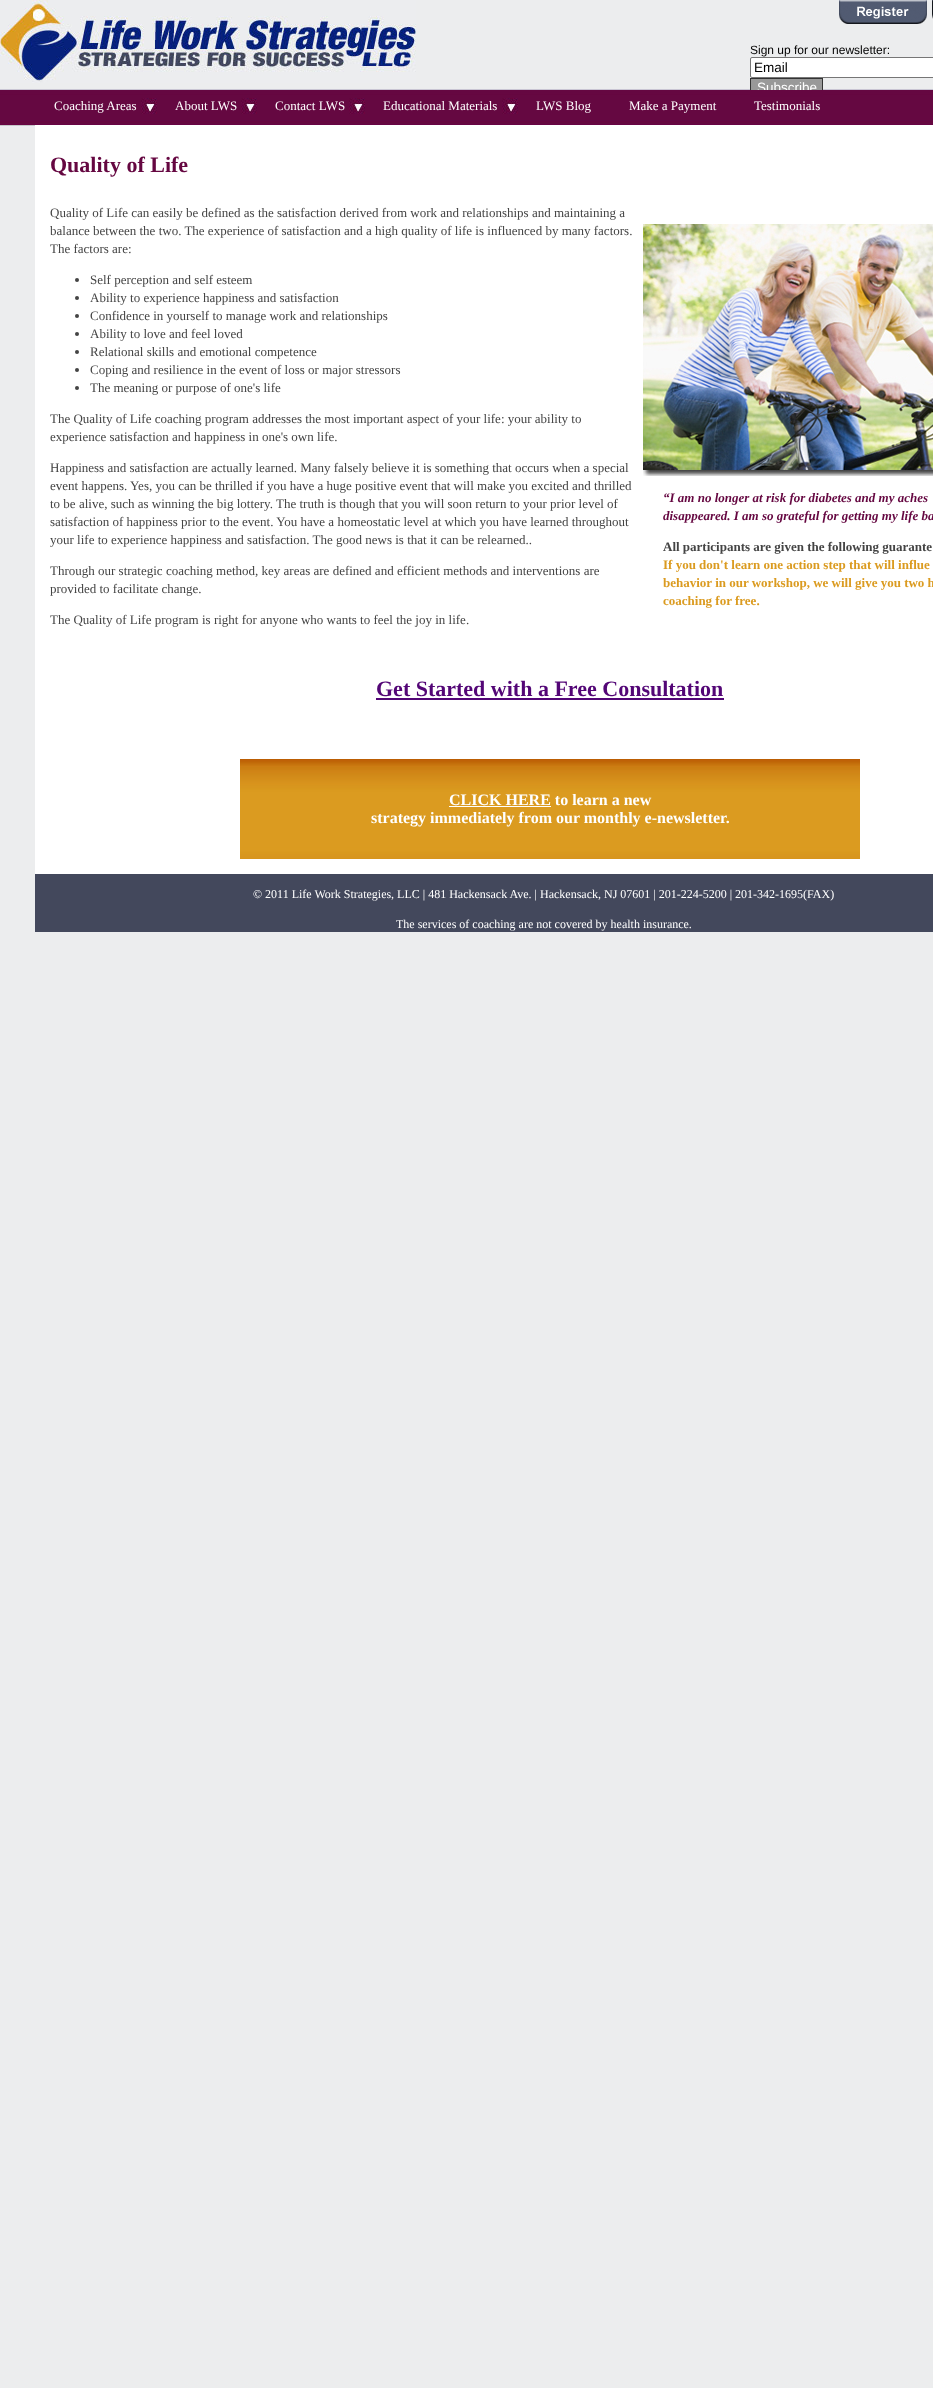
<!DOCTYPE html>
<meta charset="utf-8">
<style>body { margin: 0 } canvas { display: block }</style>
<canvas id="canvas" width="933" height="2388"></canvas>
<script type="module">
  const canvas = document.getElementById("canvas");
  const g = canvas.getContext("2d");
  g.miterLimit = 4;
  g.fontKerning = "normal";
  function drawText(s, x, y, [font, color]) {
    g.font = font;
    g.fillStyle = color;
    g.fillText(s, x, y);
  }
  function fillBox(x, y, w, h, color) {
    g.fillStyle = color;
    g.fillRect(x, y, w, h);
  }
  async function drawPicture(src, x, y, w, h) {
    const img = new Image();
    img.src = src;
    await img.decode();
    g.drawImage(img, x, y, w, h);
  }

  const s1 = ["12px Liberation Sans", "#000000"];
  const s2 = ["13.5px Liberation Sans", "#000000"];
  const s3 = ["13.5px Liberation Sans", "#FFFFFF"];
  const s4 = ["13px Liberation Serif", "#FFFFFF"];
  const s5 = ["bold 22px Liberation Serif", "#650741"];
  const s6 = ["13px Liberation Serif", "#444444"];
  const s7 = ["italic bold 13px Liberation Serif", "#650741"];
  const s8 = ["bold 13px Liberation Serif", "#444444"];
  const s9 = ["bold 13px Liberation Serif", "#DB9B20"];
  const s10 = ["bold 22px Liberation Serif", "#530676"];
  const s11 = ["bold 16px Liberation Serif", "#FFFFFF"];
  const s12 = ["12px Liberation Serif", "#FFFFFF"];

  fillBox(0, 0, 933, 2388, "#ECEDEE");
  await drawPicture("pic1.png", 0, 89, 933, 38);
  await drawPicture("pic2.png", 0, 0, 416, 83);
  await drawPicture("pic3.png", 839, 0, 88, 24);
  await drawPicture("pic4.png", 932, 0, 1, 19);
  drawText("Sign up for our newsletter:", 750, 54, s1);
  g.fillStyle = "#FFFFFF";
  g.beginPath();
  g.roundRect(750.5, 57.5, 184, 20, 1.5);
  g.fill();
  g.strokeStyle = "#767676";
  g.stroke();
  drawText("Email", 754, 72, s2);
  fillBox(751, 79, 71, 11, "#999999");
  fillBox(0, 90, 933, 3, "#650741");
  g.strokeStyle = "#333333";
  g.strokeRect(750.5, 78.5, 72, 18);
  drawText("Subscribe", 757, 92, s3);
  await drawPicture("pic5.png", 141, 98, 16, 16);
  drawText("Coaching Areas", 54, 110, s4);
  await drawPicture("pic6.png", 241, 98, 16, 16);
  drawText("About LWS", 175, 110, s4);
  await drawPicture("pic6.png", 349, 98, 16, 16);
  drawText("Contact LWS", 275, 110, s4);
  await drawPicture("pic7.png", 502, 98, 16, 16);
  drawText("Educational Materials", 383, 110, s4);
  drawText("LWS Blog", 536, 110, s4);
  drawText("Make a Payment", 629, 110, s4);
  fillBox(750, 90, 73, 7, "#650741");
  drawText("Testimonials", 754, 110, s4);
  fillBox(35, 125, 898, 749, "#FFFFFF");
  drawText("Quality of Life", 50, 172, s5);
  drawText("Quality of Life can easily be defined as the satisfaction derived from work and relationships and maintaining a", 50, 217, s6);
  drawText("balance between the two. The experience of satisfaction and a high quality of life is influenced by many factors.", 50, 235, s6);
  drawText("The factors are:", 50, 253, s6);
  g.beginPath();
  g.arc(77, 280, 2, 0, Math.PI * 2);
  g.fill();
  drawText("Self perception and self esteem", 90, 284, s6);
  g.beginPath();
  g.arc(77, 298, 2, 0, Math.PI * 2);
  g.fill();
  drawText("Ability to experience happiness and satisfaction", 90, 302, s6);
  g.beginPath();
  g.arc(77, 316, 2, 0, Math.PI * 2);
  g.fill();
  drawText("Confidence in yourself to manage work and relationships", 90, 320, s6);
  g.beginPath();
  g.arc(77, 334, 2, 0, Math.PI * 2);
  g.fill();
  drawText("Ability to love and feel loved", 90, 338, s6);
  g.beginPath();
  g.arc(77, 352, 2, 0, Math.PI * 2);
  g.fill();
  drawText("Relational skills and emotional competence", 90, 356, s6);
  g.beginPath();
  g.arc(77, 370, 2, 0, Math.PI * 2);
  g.fill();
  drawText("Coping and resilience in the event of loss or major stressors", 90, 374, s6);
  g.beginPath();
  g.arc(77, 388, 2, 0, Math.PI * 2);
  g.fill();
  drawText("The meaning or purpose of one's life", 90, 392, s6);
  drawText("The Quality of Life coaching program addresses the most important aspect of your life: your ability to", 50, 423, s6);
  drawText("experience satisfaction and happiness in one's own life.", 50, 441, s6);
  drawText("Happiness and satisfaction are actually learned. Many falsely believe it is something that occurs when a special", 50, 472, s6);
  drawText("event happens. Yes, you can be thrilled if you have a huge positive event that will make you excited and thrilled", 50, 490, s6);
  drawText("to be alive, such as winning the big lottery. The truth is though that you will soon return to your prior level of", 50, 508, s6);
  drawText("satisfaction of happiness prior to the event. You have a homeostatic level at which you have learned throughout", 50, 526, s6);
  drawText("your life to experience happiness and satisfaction. The good news is that it can be relearned..", 50, 544, s6);
  await drawPicture("pic8.png", 643, 224, 290, 252);
  drawText("“I am no longer at risk for diabetes and my aches", 663, 502, s7);
  drawText("disappeared. I am so grateful for getting my life ba", 663, 520, s7);
  drawText("All participants are given the following guarante", 663, 551, s8);
  drawText("If you don't learn one action step that will influe", 663, 569, s9);
  drawText("behavior in our workshop, we will give you two h", 663, 587, s9);
  drawText("coaching for free.", 663, 605, s9);
  drawText("Through our strategic coaching method, key areas are defined and efficient methods and interventions are", 50, 575, s6);
  drawText("provided to facilitate change.", 50, 593, s6);
  drawText("The Quality of Life program is right for anyone who wants to feel the joy in life.", 50, 624, s6);
  drawText("Get Started with a Free Consultation", 376, 696, s10);
  fillBox(376, 698, 348, 2, "#530676");
  await drawPicture("pic9.png", 240, 759, 620, 100);
  drawText("CLICK HERE to learn a new", 449, 805, s11);
  fillBox(449, 806, 102, 1, "#FFFFFF");
  drawText("strategy immediately from our monthly e-newsletter.", 371, 823, s11);
  fillBox(35, 874, 898, 58, "#43485C");
  drawText("© 2011 Life Work Strategies, LLC | 481 Hackensack Ave. | Hackensack, NJ 07601 | 201-224-5200 | 201-342-1695(FAX)", 253, 898, s12);
  drawText("The services of coaching are not covered by health insurance.", 396, 928, s12);
</script>
